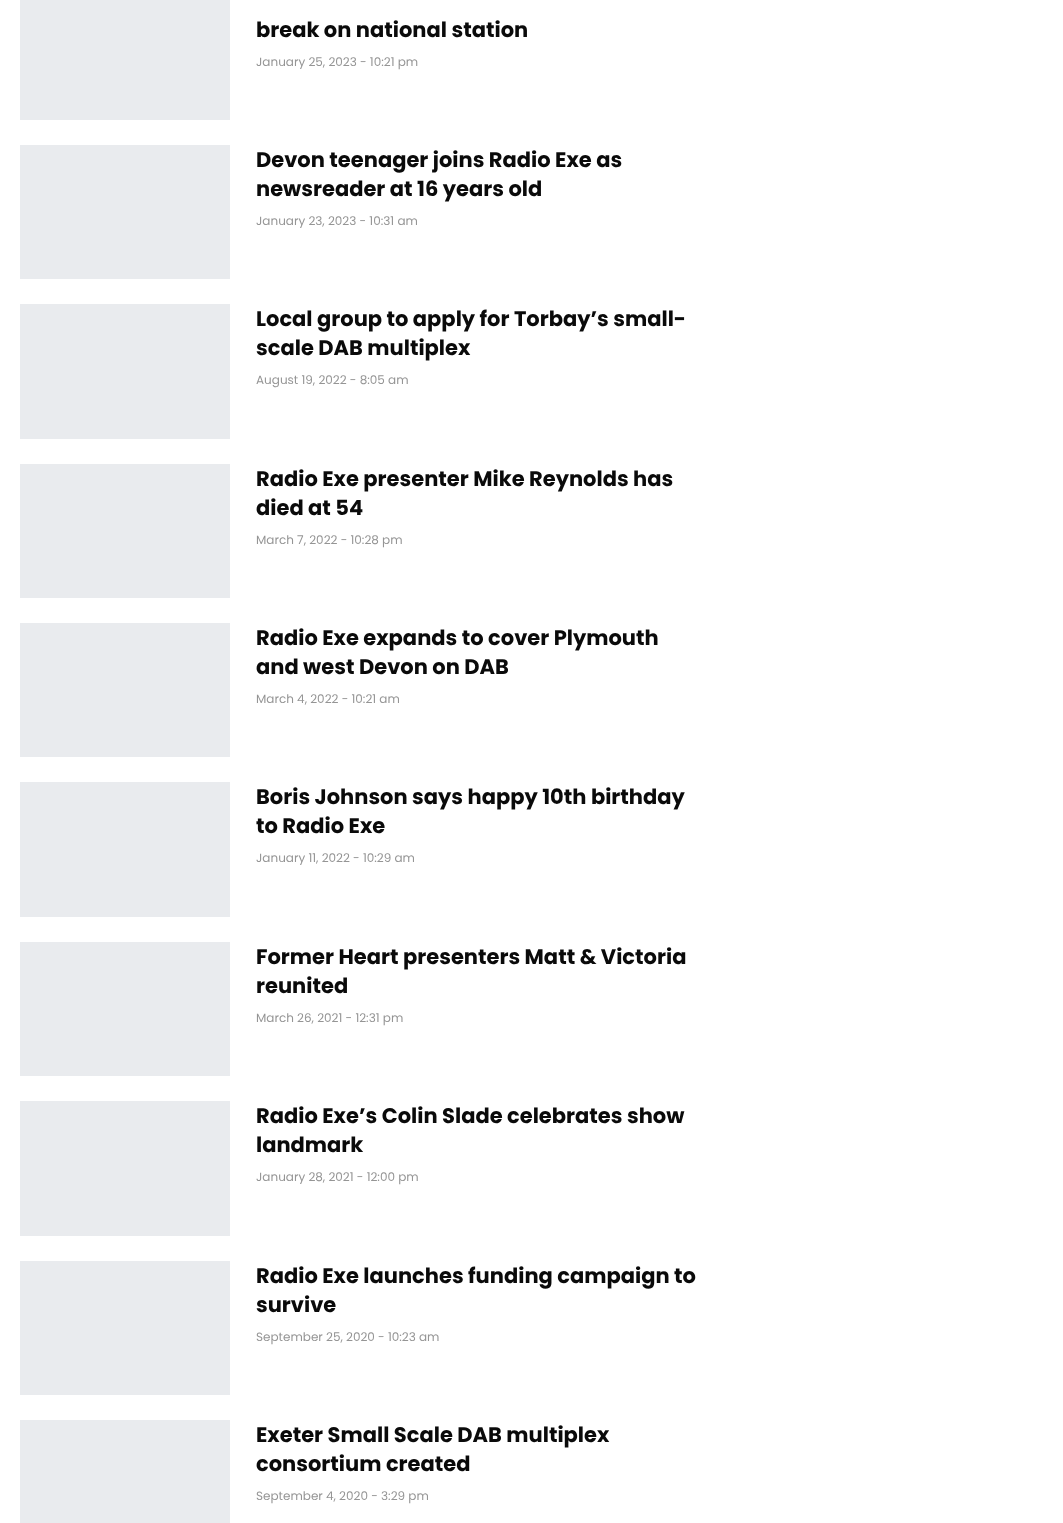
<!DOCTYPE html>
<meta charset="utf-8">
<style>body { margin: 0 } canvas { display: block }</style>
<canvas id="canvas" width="1063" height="1523"></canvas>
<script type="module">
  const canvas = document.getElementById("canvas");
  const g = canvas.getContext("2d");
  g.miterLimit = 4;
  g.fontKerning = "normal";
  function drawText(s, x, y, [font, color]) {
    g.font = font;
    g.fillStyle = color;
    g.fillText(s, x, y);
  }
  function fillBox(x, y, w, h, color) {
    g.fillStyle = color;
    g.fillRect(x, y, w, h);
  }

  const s1 = ["bold 21px Poppins", "#0A0A0A"];
  const s2 = ["12px Poppins", "#959595"];

  fillBox(0, 0, 1063, 1523, "#FFFFFF");
  fillBox(20, 0, 210, 120, "#E9EBEE");
  drawText("break on national station", 256, 37, s1);
  drawText("January 25, 2023 - 10:21 pm", 256, 66, s2);
  fillBox(20, 145, 210, 134, "#E9EBEE");
  drawText("Devon teenager joins Radio Exe as", 256, 167, s1);
  drawText("newsreader at 16 years old", 256, 196, s1);
  drawText("January 23, 2023 - 10:31 am", 256, 225, s2);
  fillBox(20, 304, 210, 135, "#E9EBEE");
  drawText("Local group to apply for Torbay’s small-", 256, 326, s1);
  drawText("scale DAB multiplex", 256, 355, s1);
  drawText("August 19, 2022 - 8:05 am", 256, 384, s2);
  fillBox(20, 464, 210, 134, "#E9EBEE");
  drawText("Radio Exe presenter Mike Reynolds has", 256, 486, s1);
  drawText("died at 54", 256, 515, s1);
  drawText("March 7, 2022 - 10:28 pm", 256, 544, s2);
  fillBox(20, 623, 210, 134, "#E9EBEE");
  drawText("Radio Exe expands to cover Plymouth", 256, 645, s1);
  drawText("and west Devon on DAB", 256, 674, s1);
  drawText("March 4, 2022 - 10:21 am", 256, 703, s2);
  fillBox(20, 782, 210, 135, "#E9EBEE");
  drawText("Boris Johnson says happy 10th birthday", 256, 804, s1);
  drawText("to Radio Exe", 256, 833, s1);
  drawText("January 11, 2022 - 10:29 am", 256, 862, s2);
  fillBox(20, 942, 210, 134, "#E9EBEE");
  drawText("Former Heart presenters Matt & Victoria", 256, 964, s1);
  drawText("reunited", 256, 993, s1);
  drawText("March 26, 2021 - 12:31 pm", 256, 1022, s2);
  fillBox(20, 1101, 210, 135, "#E9EBEE");
  drawText("Radio Exe’s Colin Slade celebrates show", 256, 1123, s1);
  drawText("landmark", 256, 1152, s1);
  drawText("January 28, 2021 - 12:00 pm", 256, 1181, s2);
  fillBox(20, 1261, 210, 134, "#E9EBEE");
  drawText("Radio Exe launches funding campaign to", 256, 1283, s1);
  drawText("survive", 256, 1312, s1);
  drawText("September 25, 2020 - 10:23 am", 256, 1341, s2);
  fillBox(20, 1420, 210, 103, "#E9EBEE");
  drawText("Exeter Small Scale DAB multiplex", 256, 1442, s1);
  drawText("consortium created", 256, 1471, s1);
  drawText("September 4, 2020 - 3:29 pm", 256, 1500, s2);
</script>
